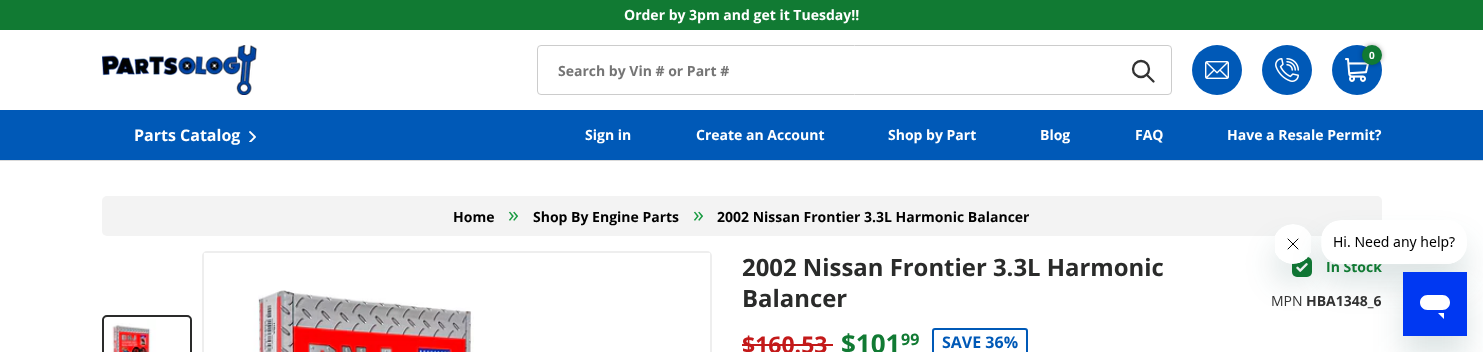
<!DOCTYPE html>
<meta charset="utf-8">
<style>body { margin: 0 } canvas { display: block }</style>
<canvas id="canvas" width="1483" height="352"></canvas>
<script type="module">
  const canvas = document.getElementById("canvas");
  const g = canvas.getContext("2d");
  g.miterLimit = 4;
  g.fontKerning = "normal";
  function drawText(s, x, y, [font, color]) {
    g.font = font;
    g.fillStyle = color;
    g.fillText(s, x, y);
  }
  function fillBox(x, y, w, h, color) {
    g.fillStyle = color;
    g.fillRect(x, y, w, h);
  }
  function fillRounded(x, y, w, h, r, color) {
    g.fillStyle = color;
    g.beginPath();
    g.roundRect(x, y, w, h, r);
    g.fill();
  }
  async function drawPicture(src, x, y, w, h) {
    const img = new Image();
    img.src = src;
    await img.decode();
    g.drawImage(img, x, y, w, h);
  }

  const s1 = ["bold 14px Open Sans", "#FFFFFF"];
  const s2 = ["bold 10px Open Sans", "#FFFFFF"];
  const s3 = ["bold 14px Open Sans", "#757575"];
  const s4 = ["bold 16px Open Sans", "#FFFFFF"];
  const s5 = ["bold 14px Open Sans", "#117A33"];
  const s6 = ["bold 14px Open Sans", "#000000"];
  const s7 = ["22px Open Sans", "#189B41"];
  const s8 = ["bold 23.9px Open Sans", "#2A2B2A"];
  const s9 = ["14px Open Sans", "#333333"];
  const s10 = ["bold 14px Open Sans", "#333333"];
  const s11 = ["bold 23px Open Sans", "#C31919"];
  const s12 = ["bold 26px Open Sans", "#117A33"];
  const s13 = ["bold 16px Open Sans", "#117A33"];
  const s14 = ["bold 16px Open Sans", "#0059B7"];

  fillBox(0, 0, 1483, 352, "#FFFFFF");
  fillBox(0, 0, 1483, 30, "#117A33");
  drawText("Order by 3pm and get it Tuesday!!", 624, 20, s1);
  fillBox(0, 160, 1483, 1, "#DADADA");
  await drawPicture("pic1.png", 102, 45, 155, 50);
  g.fillStyle = "#0059B7";
  g.beginPath();
  g.arc(1217, 70, 25, 0, Math.PI * 2);
  g.fill();
  await drawPicture("pic2.png", 1205, 61, 24, 18);
  g.beginPath();
  g.arc(1287, 70, 25, 0, Math.PI * 2);
  g.fill();
  await drawPicture("pic3.png", 1275, 58, 24, 24);
  g.beginPath();
  g.arc(1357, 70, 25, 0, Math.PI * 2);
  g.fill();
  await drawPicture("pic4.png", 1345, 58, 24, 24);
  g.fillStyle = "rgba(0, 0, 0, 0.35)";
  g.filter = "blur(2.5px)";
  g.beginPath();
  g.roundRect(1362, 45, 20, 20, 10);
  g.fill();
  g.filter = "none";
  g.fillStyle = "#117A33";
  g.beginPath();
  g.arc(1372, 55, 10, 0, Math.PI * 2);
  g.fill();
  drawText("0", 1369, 59, s2);
  g.beginPath();
  g.roundRect(537.5, 45.5, 634, 49, 3.5);
  g.strokeStyle = "#CCCCCC";
  g.stroke();
  drawText("Search by Vin # or Part #", 558, 76, s3);
  g.beginPath();
  g.arc(1141, 69, 8, 0, Math.PI * 2);
  g.strokeStyle = "#333333";
  g.lineWidth = 2.3;
  g.stroke();
  g.beginPath();
  g.moveTo(1147, 75);
  g.lineTo(1153.5, 81.5);
  g.lineCap = "round";
  g.lineJoin = "round";
  g.stroke();
  fillBox(0, 110, 1483, 50, "#0059B7");
  drawText("Parts Catalog", 134, 141, s4);
  await drawPicture("pic5.png", 249, 131, 7, 11);
  drawText("Sign in", 585, 140, s1);
  drawText("Create an Account", 696, 140, s1);
  drawText("Shop by Part", 888, 140, s1);
  drawText("Blog", 1040, 140, s1);
  drawText("FAQ", 1135, 140, s1);
  drawText("Have a Resale Permit?", 1227, 140, s1);
  fillRounded(102, 196, 1280, 40, 5, "#F3F3F3");
  fillRounded(1292, 257, 20, 20, 5, "#117A33");
  await drawPicture("pic11.png", 1296, 263, 12, 9);
  g.fillStyle = "rgba(23, 73, 77, 0.15)";
  g.filter = "blur(15px)";
  g.beginPath();
  g.roundRect(1273, 244, 40, 40, 20);
  g.fill();
  g.filter = "none";
  await drawPicture("pic7.png", 1275, 224, 36, 40);
  g.save();
  g.beginPath();
  g.moveTo(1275, 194);
  g.lineTo(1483, 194);
  g.lineTo(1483, 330);
  g.lineTo(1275, 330);
  g.closePath();
  g.moveTo(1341, 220);
  g.lineTo(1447, 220);
  g.bezierCurveTo(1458, 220, 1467, 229, 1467, 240);
  g.lineTo(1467, 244);
  g.bezierCurveTo(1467, 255, 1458, 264, 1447, 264);
  g.lineTo(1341, 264);
  g.bezierCurveTo(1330, 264, 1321, 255, 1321, 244);
  g.lineTo(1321, 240);
  g.bezierCurveTo(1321, 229, 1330, 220, 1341, 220);
  g.closePath();
  g.clip("evenodd");
  g.filter = "blur(15px)";
  g.beginPath();
  g.roundRect(1321, 240, 146, 44, 20);
  g.fill();
  g.filter = "none";
  g.restore();
  drawText("In Stock", 1326, 272, s5);
  await drawPicture("pic6.png", 1322, 220, 139, 44);
  g.fillStyle = "rgba(23, 73, 77, 0.15)";
  g.filter = "blur(15px)";
  g.beginPath();
  g.rect(1403, 292, 64, 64);
  g.fill();
  g.filter = "none";
  await drawPicture("pic8.png", 1403, 272, 64, 64);
  drawText("Home", 453, 222, s6);
  drawText("»", 508, 222, s7);
  drawText("Shop By Engine Parts", 533, 222, s6);
  drawText("»", 693, 222, s7);
  drawText("2002 Nissan Frontier 3.3L Harmonic Balancer", 717, 222, s6);
  g.beginPath();
  g.roundRect(103, 316, 88, 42, 4);
  g.strokeStyle = "#2A2B2A";
  g.lineWidth = 2;
  g.lineJoin = "miter";
  g.stroke();
  await drawPicture("pic9.png", 104, 319, 86, 33);
  g.beginPath();
  g.roundRect(203, 252, 508, 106, 4);
  g.strokeStyle = "#EEEEEE";
  g.stroke();
  await drawPicture("pic10.png", 204, 253, 506, 99);
  drawText("2002 Nissan Frontier 3.3L Harmonic", 742, 276, s8);
  drawText("Balancer", 742, 307, s8);
  drawText("MPN", 1271, 306, s9);
  drawText("HBA1348_6", 1306, 306, s10);
  drawText("$160.53", 742, 353, s11);
  fillBox(742, 344, 91, 2, "#C31919");
  drawText("$101", 841, 353, s12);
  drawText("99", 901, 345, s13);
  g.beginPath();
  g.roundRect(933, 329, 94, 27, 2);
  g.strokeStyle = "#0059B7";
  g.stroke();
  drawText("SAVE 36%", 942, 348, s14);
</script>
